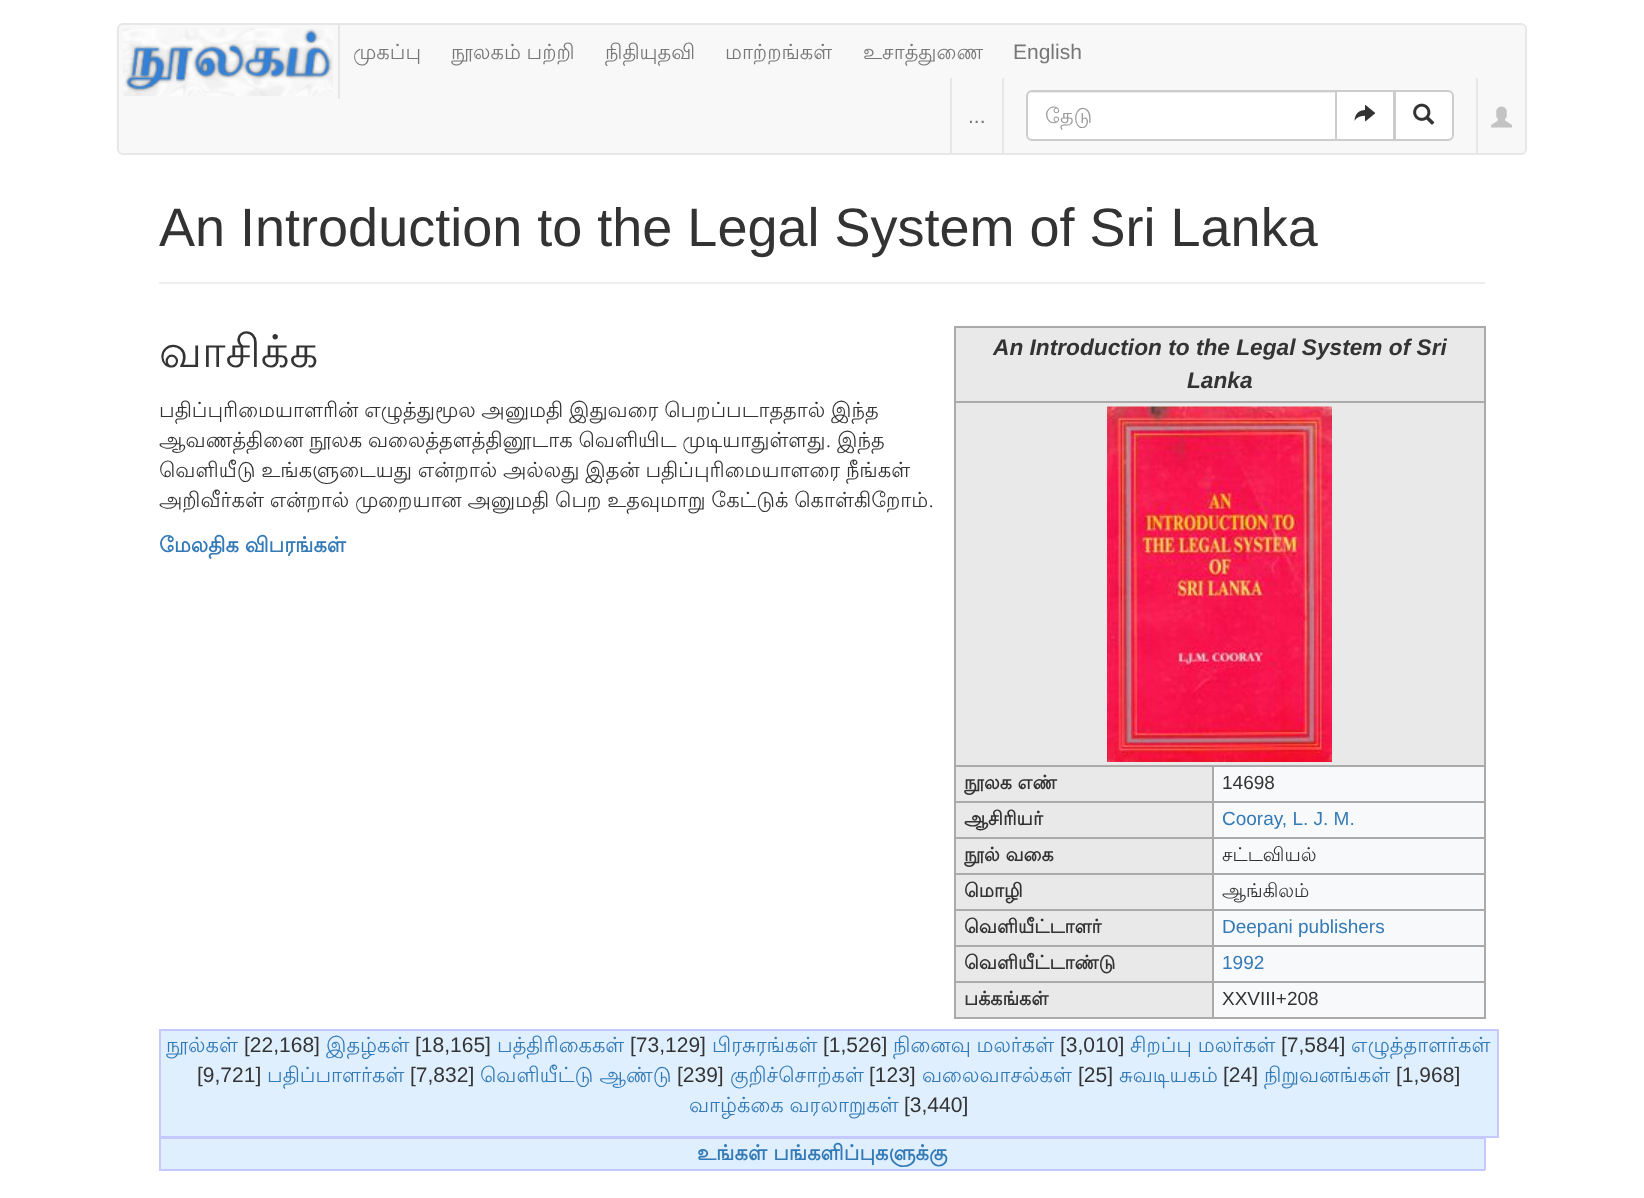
<!DOCTYPE html>
<meta charset="utf-8">
<style>body { margin: 0 } canvas { display: block }</style>
<canvas id="canvas" width="1644" height="1198"></canvas>
<script type="module">
  const canvas = document.getElementById("canvas");
  const g = canvas.getContext("2d");
  g.miterLimit = 4;
  g.fontKerning = "normal";
  function drawText(s, x, y, [font, color]) {
    g.font = font;
    g.fillStyle = color;
    g.fillText(s, x, y);
  }
  function fillBox(x, y, w, h, color) {
    g.fillStyle = color;
    g.fillRect(x, y, w, h);
  }
  async function drawPicture(src, x, y, w, h) {
    const img = new Image();
    img.src = src;
    await img.decode();
    g.drawImage(img, x, y, w, h);
  }

  const s1 = ["21px Lohit Tamil", "#777777"];
  const s2 = ["21px Liberation Sans", "#777777"];
  const s3 = ["21px Lohit Tamil", "#999999"];
  const s4 = ["54px Liberation Sans", "#333333"];
  const s5 = ["45px Lohit Tamil", "#333333"];
  const s6 = ["italic bold 22.7px Liberation Sans", "#333333"];
  const s7 = ["bold 19px Lohit Tamil", "#333333"];
  const s8 = ["19px Liberation Sans", "#333333"];
  const s9 = ["19px Liberation Sans", "#337AB7"];
  const s10 = ["19px Lohit Tamil", "#333333"];
  const s11 = ["21px Lohit Tamil", "#333333"];
  const s12 = ["bold 21px Lohit Tamil", "#337AB7"];
  const s13 = ["21px Lohit Tamil", "#337AB7"];
  const s14 = ["21px Liberation Sans", "#333333"];

  fillBox(0, 0, 1644, 1198, "#FFFFFF");
  g.fillStyle = "#F8F8F8";
  g.beginPath();
  g.roundRect(118, 24, 1408, 130, 5);
  g.fill();
  g.strokeStyle = "#E7E7E7";
  g.lineWidth = 2;
  g.stroke();
  fillBox(338, 24, 2, 75, "#E7E7E7");
  await drawPicture("pic1.png", 123, 28, 210, 68);
  drawText("முகப்பு", 353, 59, s1);
  g.wordSpacing = "-0.5px";
  drawText("நூலகம் பற்றி", 451, 59, s1);
  g.wordSpacing = "0px";
  drawText("நிதியுதவி", 605, 59, s1);
  drawText("மாற்றங்கள்", 725, 59, s1);
  drawText("உசாத்துணை", 863, 59, s1);
  drawText("English", 1013, 59, s2);
  fillBox(1002, 78, 2, 75, "#E7E7E7");
  fillBox(950, 78, 2, 75, "#E7E7E7");
  drawText("...", 968, 123, s2);
  fillBox(1476, 78, 2, 75, "#E7E7E7");
  g.fillStyle = "#FFFFFF";
  g.beginPath();
  g.roundRect(1026, 90, 311, 51, [6, 0, 0, 6]);
  g.fill();
  g.fillStyle = "#ECECEC";
  g.beginPath();
  g.moveTo(1032, 93);
  g.lineTo(1335, 93);
  g.lineTo(1335, 92);
  g.lineTo(1033, 92);
  g.bezierCurveTo(1030, 92, 1028, 95, 1028, 98);
  g.bezierCurveTo(1028, 95, 1030, 93, 1032, 93);
  g.closePath();
  g.fill();
  g.beginPath();
  g.roundRect(1027, 91, 309, 49, [5, 0, 0, 5]);
  g.strokeStyle = "#CCCCCC";
  g.stroke();
  g.save();
  g.beginPath();
  g.rect(1046, 104, 271, 27);
  g.clip();
  drawText("தேடு", 1045, 123, s3);
  g.restore();
  g.fillStyle = "#FFFFFF";
  g.beginPath();
  g.rect(1336, 91, 58, 49);
  g.fill();
  g.stroke();
  await drawPicture("pic2.png", 1354, 105, 22, 17);
  g.beginPath();
  g.roundRect(1395, 91, 58, 49, [0, 5, 5, 0]);
  g.fill();
  g.stroke();
  await drawPicture("pic3.png", 1413, 103, 22, 22);
  await drawPicture("pic4.png", 1491, 106, 21, 22);
  fillBox(159, 282, 1326, 2, "#EEEEEE");
  drawText("An Introduction to the Legal System of Sri Lanka", 159, 246, s4);
  drawText("வாசிக்க", 159, 367, s5);
  fillBox(1214, 767, 270, 250, "#F8F9FA");
  fillBox(956, 328, 528, 73, "#E9E9E9");
  fillBox(954, 326, 531, 2, "#AAAAAA");
  fillBox(954, 401, 531, 2, "#AAAAAA");
  fillBox(1212, 765, 273, 2, "#AAAAAA");
  fillBox(1212, 801, 273, 2, "#AAAAAA");
  fillBox(1212, 837, 273, 2, "#AAAAAA");
  fillBox(1212, 873, 273, 2, "#AAAAAA");
  fillBox(1212, 909, 273, 2, "#AAAAAA");
  fillBox(1212, 945, 273, 2, "#AAAAAA");
  fillBox(1212, 981, 273, 2, "#AAAAAA");
  fillBox(1484, 981, 2, 38, "#AAAAAA");
  fillBox(1484, 945, 2, 38, "#AAAAAA");
  fillBox(1484, 909, 2, 38, "#AAAAAA");
  fillBox(1484, 873, 2, 38, "#AAAAAA");
  fillBox(1484, 837, 2, 38, "#AAAAAA");
  fillBox(1484, 801, 2, 38, "#AAAAAA");
  fillBox(1484, 765, 2, 38, "#AAAAAA");
  fillBox(1484, 401, 2, 366, "#AAAAAA");
  fillBox(1484, 326, 2, 76, "#AAAAAA");
  fillBox(1212, 1017, 273, 2, "#AAAAAA");
  fillBox(1212, 981, 2, 38, "#AAAAAA");
  fillBox(954, 981, 260, 2, "#AAAAAA");
  fillBox(1212, 945, 2, 38, "#AAAAAA");
  fillBox(954, 945, 260, 2, "#AAAAAA");
  fillBox(1212, 909, 2, 38, "#AAAAAA");
  fillBox(954, 909, 260, 2, "#AAAAAA");
  fillBox(1212, 873, 2, 38, "#AAAAAA");
  fillBox(954, 873, 260, 2, "#AAAAAA");
  fillBox(1212, 837, 2, 38, "#AAAAAA");
  fillBox(954, 837, 260, 2, "#AAAAAA");
  fillBox(1212, 801, 2, 38, "#AAAAAA");
  fillBox(954, 801, 260, 2, "#AAAAAA");
  fillBox(1212, 765, 2, 38, "#AAAAAA");
  fillBox(954, 765, 260, 2, "#AAAAAA");
  fillBox(954, 1017, 260, 2, "#AAAAAA");
  fillBox(954, 981, 2, 38, "#AAAAAA");
  fillBox(954, 945, 2, 38, "#AAAAAA");
  fillBox(954, 909, 2, 38, "#AAAAAA");
  fillBox(954, 873, 2, 38, "#AAAAAA");
  fillBox(954, 837, 2, 38, "#AAAAAA");
  fillBox(954, 801, 2, 38, "#AAAAAA");
  fillBox(954, 765, 2, 38, "#AAAAAA");
  fillBox(954, 401, 2, 366, "#AAAAAA");
  fillBox(954, 326, 2, 76, "#AAAAAA");
  drawText("An Introduction to the Legal System of Sri", 993, 355, s6);
  drawText("Lanka", 1187, 388, s6);
  fillBox(956, 403, 528, 362, "#E9E9E9");
  await drawPicture("pic5.png", 1107, 406, 225, 356);
  fillBox(956, 767, 256, 34, "#E9E9E9");
  drawText("நூலக எண்", 964, 789, s7);
  drawText("14698", 1222, 789, s8);
  fillBox(956, 803, 256, 34, "#E9E9E9");
  drawText("ஆசிரியர்", 964, 825, s7);
  drawText("Cooray, L. J. M.", 1222, 825, s9);
  fillBox(956, 839, 256, 34, "#E9E9E9");
  drawText("நூல் வகை", 964, 861, s7);
  drawText("சட்டவியல்", 1222, 861, s10);
  fillBox(956, 875, 256, 34, "#E9E9E9");
  drawText("மொழி", 964, 897, s7);
  drawText("ஆங்கிலம்", 1222, 897, s10);
  fillBox(956, 911, 256, 34, "#E9E9E9");
  drawText("வெளியீட்டாளர்", 964, 933, s7);
  drawText("Deepani publishers", 1222, 933, s9);
  fillBox(956, 947, 256, 34, "#E9E9E9");
  drawText("வெளியீட்டாண்டு", 964, 969, s7);
  drawText("1992", 1222, 969, s9);
  fillBox(956, 983, 256, 34, "#E9E9E9");
  drawText("பக்கங்கள்", 964, 1005, s7);
  drawText("XXVIII+208", 1222, 1005, s8);
  g.wordSpacing = "-0.5px";
  drawText("பதிப்புரிமையாளரின் எழுத்துமூல அனுமதி இதுவரை பெறப்படாததால் இந்த", 159, 417, s11);
  drawText("ஆவணத்தினை நூலக வலைத்தளத்தினூடாக வெளியிட முடியாதுள்ளது. இந்த", 159, 447, s11);
  drawText("வெளியீடு உங்களுடையது என்றால் அல்லது இதன் பதிப்புரிமையாளரை நீங்கள்", 159, 477, s11);
  drawText("அறிவீர்கள் என்றால் முறையான அனுமதி பெற உதவுமாறு கேட்டுக் கொள்கிறோம்.", 159, 507, s11);
  drawText("மேலதிக விபரங்கள்", 159, 552, s12);
  fillBox(161, 1031, 1336, 105, "#DFEFFE");
  fillBox(159, 1029, 1340, 2, "#C6C9FF");
  fillBox(1497, 1029, 2, 108, "#C6C9FF");
  fillBox(159, 1136, 1340, 2, "#C6C9FF");
  fillBox(159, 1029, 2, 108, "#C6C9FF");
  g.wordSpacing = "0px";
  drawText("நூல்கள்", 166, 1052, s13);
  drawText("[22,168]", 244, 1052, s14);
  drawText("இதழ்கள்", 326, 1052, s13);
  drawText("[18,165]", 415, 1052, s14);
  drawText("பத்திரிகைகள்", 497, 1052, s13);
  drawText("[73,129]", 630, 1052, s14);
  drawText("பிரசுரங்கள்", 712, 1052, s13);
  drawText("[1,526]", 823, 1052, s14);
  g.wordSpacing = "-0.5px";
  drawText("நினைவு மலர்கள்", 893, 1052, s13);
  g.wordSpacing = "0px";
  drawText("[3,010]", 1060, 1052, s14);
  g.wordSpacing = "-0.5px";
  drawText("சிறப்பு மலர்கள்", 1130, 1052, s13);
  g.wordSpacing = "0px";
  drawText("[7,584]", 1281, 1052, s14);
  drawText("எழுத்தாளர்கள்", 1351, 1052, s13);
  drawText("[9,721]", 197, 1082, s14);
  drawText("பதிப்பாளர்கள்", 267, 1082, s13);
  drawText("[7,832]", 410, 1082, s14);
  drawText("வெளியீட்டு ஆண்டு", 480, 1082, s13);
  drawText("[239]", 677, 1082, s14);
  drawText("குறிச்சொற்கள்", 730, 1082, s13);
  drawText("[123]", 869, 1082, s14);
  drawText("வலைவாசல்கள்", 922, 1082, s13);
  drawText("[25]", 1078, 1082, s14);
  drawText("சுவடியகம்", 1119, 1082, s13);
  drawText("[24]", 1223, 1082, s14);
  drawText("நிறுவனங்கள்", 1264, 1082, s13);
  drawText("[1,968]", 1396, 1082, s14);
  g.wordSpacing = "-0.5px";
  drawText("வாழ்க்கை வரலாறுகள்", 689, 1112, s13);
  g.wordSpacing = "0px";
  drawText("[3,440]", 904, 1112, s14);
  fillBox(161, 1139, 1323, 30, "#DFEFFE");
  fillBox(159, 1138, 1326, 1, "#C6C9FF");
  fillBox(1484, 1137, 2, 33, "#C6C9FF");
  fillBox(159, 1169, 1326, 2, "#C6C9FF");
  fillBox(159, 1137, 2, 33, "#C6C9FF");
  drawText("உங்கள் பங்களிப்புகளுக்கு", 697, 1160, s12);
</script>
